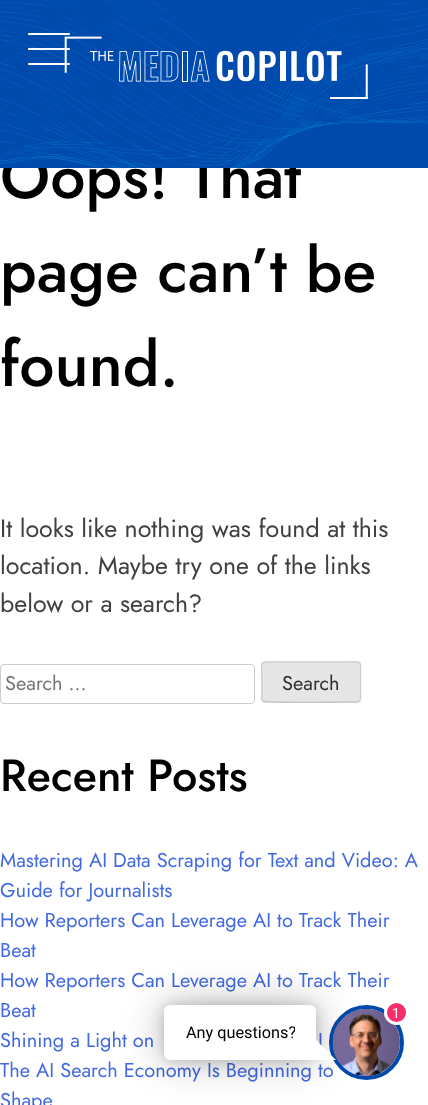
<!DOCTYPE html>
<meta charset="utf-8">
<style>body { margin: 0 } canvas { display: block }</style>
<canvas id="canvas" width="428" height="1105"></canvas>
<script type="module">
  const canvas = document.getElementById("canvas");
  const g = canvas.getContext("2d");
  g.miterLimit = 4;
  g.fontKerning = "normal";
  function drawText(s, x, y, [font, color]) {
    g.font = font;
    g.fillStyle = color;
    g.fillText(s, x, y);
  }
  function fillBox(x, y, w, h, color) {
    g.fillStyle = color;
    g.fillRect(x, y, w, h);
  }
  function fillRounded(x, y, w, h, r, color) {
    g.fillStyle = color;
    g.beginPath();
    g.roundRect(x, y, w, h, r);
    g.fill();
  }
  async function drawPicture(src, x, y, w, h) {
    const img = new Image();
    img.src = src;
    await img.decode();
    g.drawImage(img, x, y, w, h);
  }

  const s1 = ["500 62.5px Jost", "#000000"];
  const s2 = ["25px Jost", "#404040"];
  const s3 = ["20px Jost", "#757575"];
  const s4 = ["20px Jost", "#2E2E2E"];
  const s5 = ["500 45px Jost", "#000000"];
  const s6 = ["20px Jost", "#4169E1"];
  const s7 = ["14px Roboto", "#FFFFFF"];
  const s8 = ["16.25px Roboto", "#000000"];

  fillBox(0, 0, 428, 1105, "#FFFFFF");
  drawText("Oops! That", 0, 198, s1);
  await drawPicture("pic1.png", 0, 0, 428, 168);
  await drawPicture("pic2.png", 64, 36, 304, 63);
  g.beginPath();
  g.moveTo(29, 49);
  g.lineTo(69, 49);
  g.moveTo(29, 34);
  g.lineTo(69, 34);
  g.moveTo(29, 64);
  g.lineTo(69, 64);
  g.strokeStyle = "#FFFFFF";
  g.lineWidth = 2.2;
  g.lineCap = "round";
  g.lineJoin = "round";
  g.stroke();
  drawText("page can’t be", 0, 292, s1);
  drawText("found.", 0, 386, s1);
  drawText("It looks like nothing was found at this", 0, 537, s2);
  drawText("location. Maybe try one of the links", 0, 574, s2);
  drawText("below or a search?", 0, 612, s2);
  g.beginPath();
  g.roundRect(0.5, 664.5, 254, 39, 3.5);
  g.strokeStyle = "#CCCCCC";
  g.lineWidth = 1;
  g.lineJoin = "miter";
  g.stroke();
  drawText("Search …", 5, 690, s3);
  fillRounded(261, 661, 100, 42, 4, "#E6E6E6");
  g.beginPath();
  g.moveTo(359.5, 701);
  g.lineTo(357.5, 702);
  g.lineTo(342, 702);
  g.bezierCurveTo(333.5, 702, 265, 703, 263, 701);
  g.strokeStyle = "#BBBBBB";
  g.lineWidth = 1.2;
  g.lineCap = "butt";
  g.stroke();
  g.beginPath();
  g.moveTo(263, 701);
  g.bezierCurveTo(261, 699, 262, 694.5, 262, 693);
  g.lineTo(262, 682);
  g.bezierCurveTo(262, 658.5, 257.5, 662, 280.5, 662);
  g.lineTo(342, 662);
  g.bezierCurveTo(365, 662, 360.5, 658.5, 360.5, 682);
  g.lineTo(360.5, 693);
  g.bezierCurveTo(360.5, 694.5, 361.5, 699, 359.5, 701);
  g.strokeStyle = "#CCCCCC";
  g.stroke();
  drawText("Search", 282, 690, s4);
  drawText("Recent Posts", 0, 791, s5);
  drawText("Mastering AI Data Scraping for Text and Video: A", 0, 867, s6);
  drawText("Guide for Journalists", 0, 897, s6);
  drawText("How Reporters Can Leverage AI to Track Their", 0, 927, s6);
  drawText("Beat", 0, 957, s6);
  drawText("How Reporters Can Leverage AI to Track Their", 0, 987, s6);
  drawText("Beat", 0, 1017, s6);
  drawText("Shining a Light on", 0, 1047, s6);
  drawText("I", 318, 1047, s6);
  drawText("The AI Search Economy Is Beginning to", 0, 1077, s6);
  drawText("Shape", 0, 1107, s6);
  g.beginPath();
  g.arc(366.5, 1042.5, 35.5, 0, Math.PI * 2);
  g.strokeStyle = "#004AAD";
  g.lineWidth = 4;
  g.stroke();
  await drawPicture("pic3.png", 332, 1008, 68, 69);
  g.fillStyle = "#F82D6C";
  g.beginPath();
  g.arc(396.5, 1012.5, 11, 0, Math.PI * 2);
  g.fill();
  g.strokeStyle = "#FFFFFF";
  g.lineWidth = 3;
  g.stroke();
  drawText("1", 392, 1018, s7);
  g.fillStyle = "rgba(0, 0, 0, 0.3)";
  g.filter = "blur(19px)";
  g.beginPath();
  g.roundRect(164, 1005, 152, 55, 6);
  g.fill();
  g.filter = "none";
  g.fillStyle = "rgba(0, 0, 0, 0.15)";
  g.filter = "blur(6px)";
  g.beginPath();
  g.roundRect(164, 1005, 152, 55, 6);
  g.fill();
  g.filter = "none";
  g.fillStyle = "#FFFFFF";
  g.beginPath();
  g.roundRect(164, 1005, 152, 55, [6, 6, 0, 6]);
  g.fill();
  drawText("Any questions?", 186, 1038, s8);
  g.fillStyle = "#FFFFFF";
  g.beginPath();
  g.moveTo(295, 1060);
  g.lineTo(295, 1019);
  g.lineTo(336, 1060);
  g.closePath();
  g.fill();
</script>
